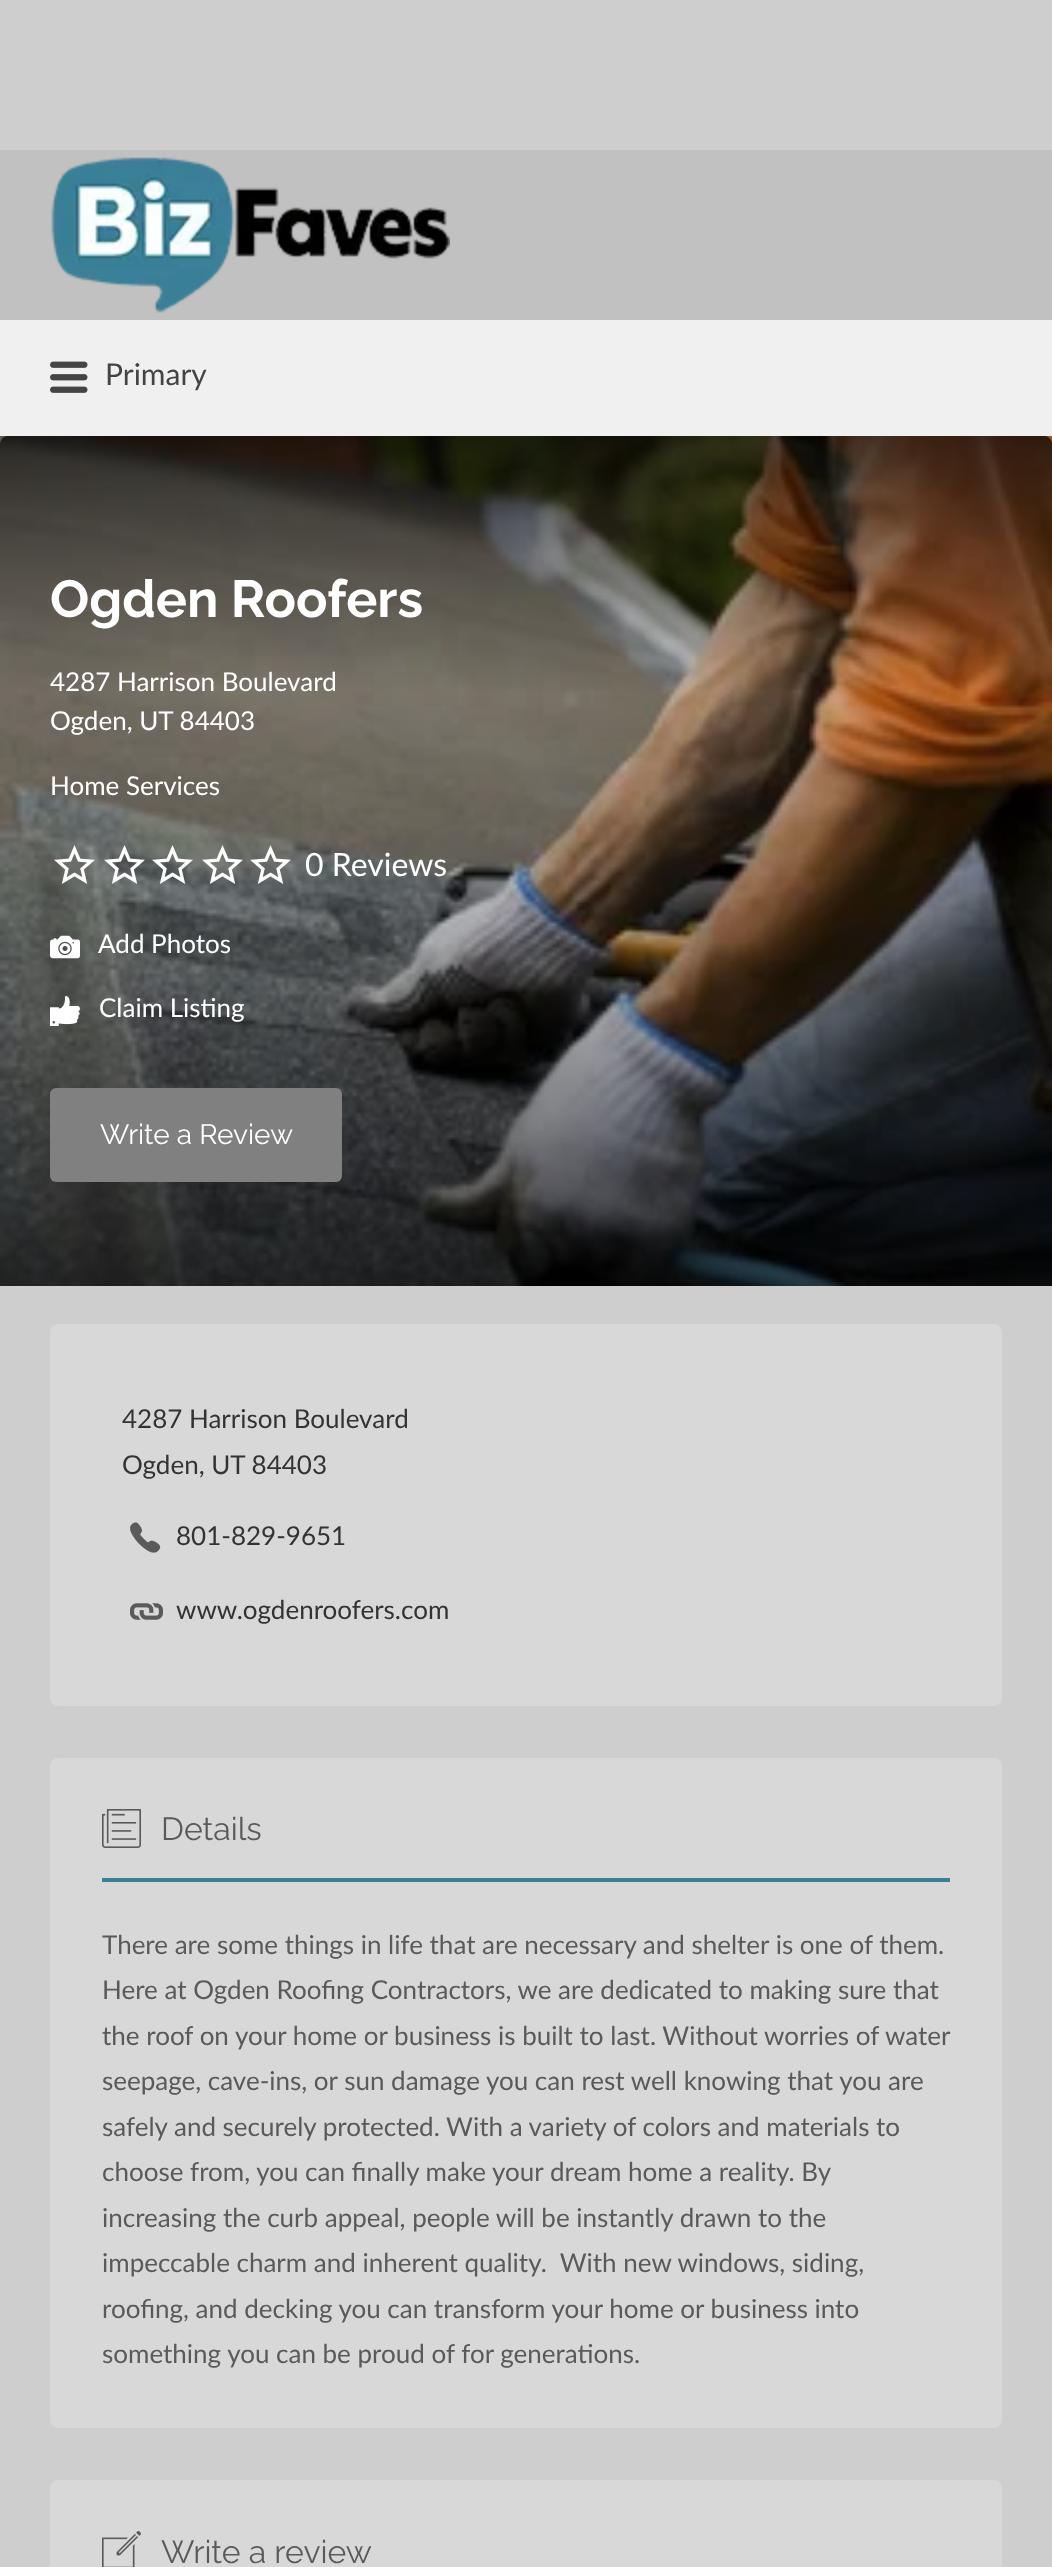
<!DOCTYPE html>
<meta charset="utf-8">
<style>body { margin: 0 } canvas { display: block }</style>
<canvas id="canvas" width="1052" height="2567"></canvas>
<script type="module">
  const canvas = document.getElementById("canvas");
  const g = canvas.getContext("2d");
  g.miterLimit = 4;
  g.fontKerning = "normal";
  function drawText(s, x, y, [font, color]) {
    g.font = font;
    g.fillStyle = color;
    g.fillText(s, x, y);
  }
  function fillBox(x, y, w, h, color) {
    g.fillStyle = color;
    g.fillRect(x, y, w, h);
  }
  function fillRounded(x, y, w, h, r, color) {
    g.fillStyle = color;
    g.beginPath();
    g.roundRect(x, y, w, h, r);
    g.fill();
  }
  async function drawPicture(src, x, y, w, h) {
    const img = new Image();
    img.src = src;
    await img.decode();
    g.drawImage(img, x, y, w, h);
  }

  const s1 = ["30px Lato", "#444443"];
  const s2 = ["bold 52px Raleway", "#FFFFFF"];
  const s3 = ["26px Lato", "#FFFFFF"];
  const s4 = ["32px Lato", "#FFFFFF"];
  const s5 = ["28px Raleway", "#FFFFFF"];
  const s6 = ["26px Lato", "#333333"];
  const s7 = ["32px Raleway", "#5B5A59"];
  const s8 = ["26px Lato", "#5B5A59"];

  fillBox(0, 0, 1052, 2567, "#CECECE");
  fillBox(0, 150, 1052, 170, "#C1C1C1");
  await drawPicture("pic1.png", 51, 157, 399, 156);
  fillBox(0, 320, 1052, 116, "#F0F0F0");
  await drawPicture("pic2.png", 50, 361, 38, 32);
  drawText("Primary", 105, 385, s1);
  await drawPicture("pic3.png", 0, 436, 1052, 850);
  drawText("Ogden Roofers", 50, 617, s2);
  drawText("4287 Harrison Boulevard", 50, 691, s3);
  drawText("Ogden, UT 84403", 50, 730, s3);
  drawText("Home Services", 50, 795, s3);
  await drawPicture("pic4.png", 54, 845, 41, 39);
  await drawPicture("pic5.png", 104, 845, 41, 39);
  await drawPicture("pic6.png", 152, 845, 41, 39);
  await drawPicture("pic7.png", 202, 845, 41, 39);
  await drawPicture("pic8.png", 250, 845, 41, 39);
  drawText("0 Reviews", 305, 876, s4);
  await drawPicture("pic9.png", 50, 935, 30, 24);
  drawText("Add Photos", 98, 953, s3);
  await drawPicture("pic10.png", 50, 996, 30, 30);
  drawText("Claim Listing", 99, 1017, s3);
  fillRounded(50, 1088, 292, 94, 6, "#818080");
  drawText("Write a Review", 100, 1144, s5);
  fillRounded(50, 1324, 952, 382, 8, "#D8D8D8");
  drawText("4287 Harrison Boulevard", 122, 1428, s6);
  drawText("Ogden, UT 84403", 122, 1474, s6);
  await drawPicture("pic11.png", 130, 1522, 31, 31);
  drawText("801-829-9651", 176, 1545, s6);
  await drawPicture("pic12.png", 130, 1603, 33, 17);
  drawText("www.ogdenroofers.com", 176, 1619, s6);
  fillRounded(50, 1758, 952, 670, 8, "#D8D8D8");
  fillBox(102, 1878, 848, 4, "#3A7F98");
  await drawPicture("pic13.png", 102, 1809, 39, 39);
  drawText("Details", 161, 1840, s7);
  drawText("There are some things in life that are necessary and shelter is one of them.", 102, 1954, s8);
  drawText("Here at Ogden Roofing Contractors, we are dedicated to making sure that", 102, 1999, s8);
  drawText("the roof on your home or business is built to last. Without worries of water", 102, 2045, s8);
  drawText("seepage, cave-ins, or sun damage you can rest well knowing that you are", 102, 2090, s8);
  drawText("safely and securely protected. With a variety of colors and materials to", 102, 2136, s8);
  drawText("choose from, you can finally make your dream home a reality. By", 102, 2181, s8);
  drawText("increasing the curb appeal, people will be instantly drawn to the", 102, 2227, s8);
  drawText("impeccable charm and inherent quality.  With new windows, siding,", 102, 2272, s8);
  drawText("roofing, and decking you can transform your home or business into", 102, 2318, s8);
  drawText("something you can be proud of for generations.", 102, 2363, s8);
  fillRounded(50, 2480, 952, 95, 8, "#D8D8D8");
  await drawPicture("pic14.png", 102, 2531, 39, 36);
  drawText("Write a review", 161, 2563, s7);
</script>
